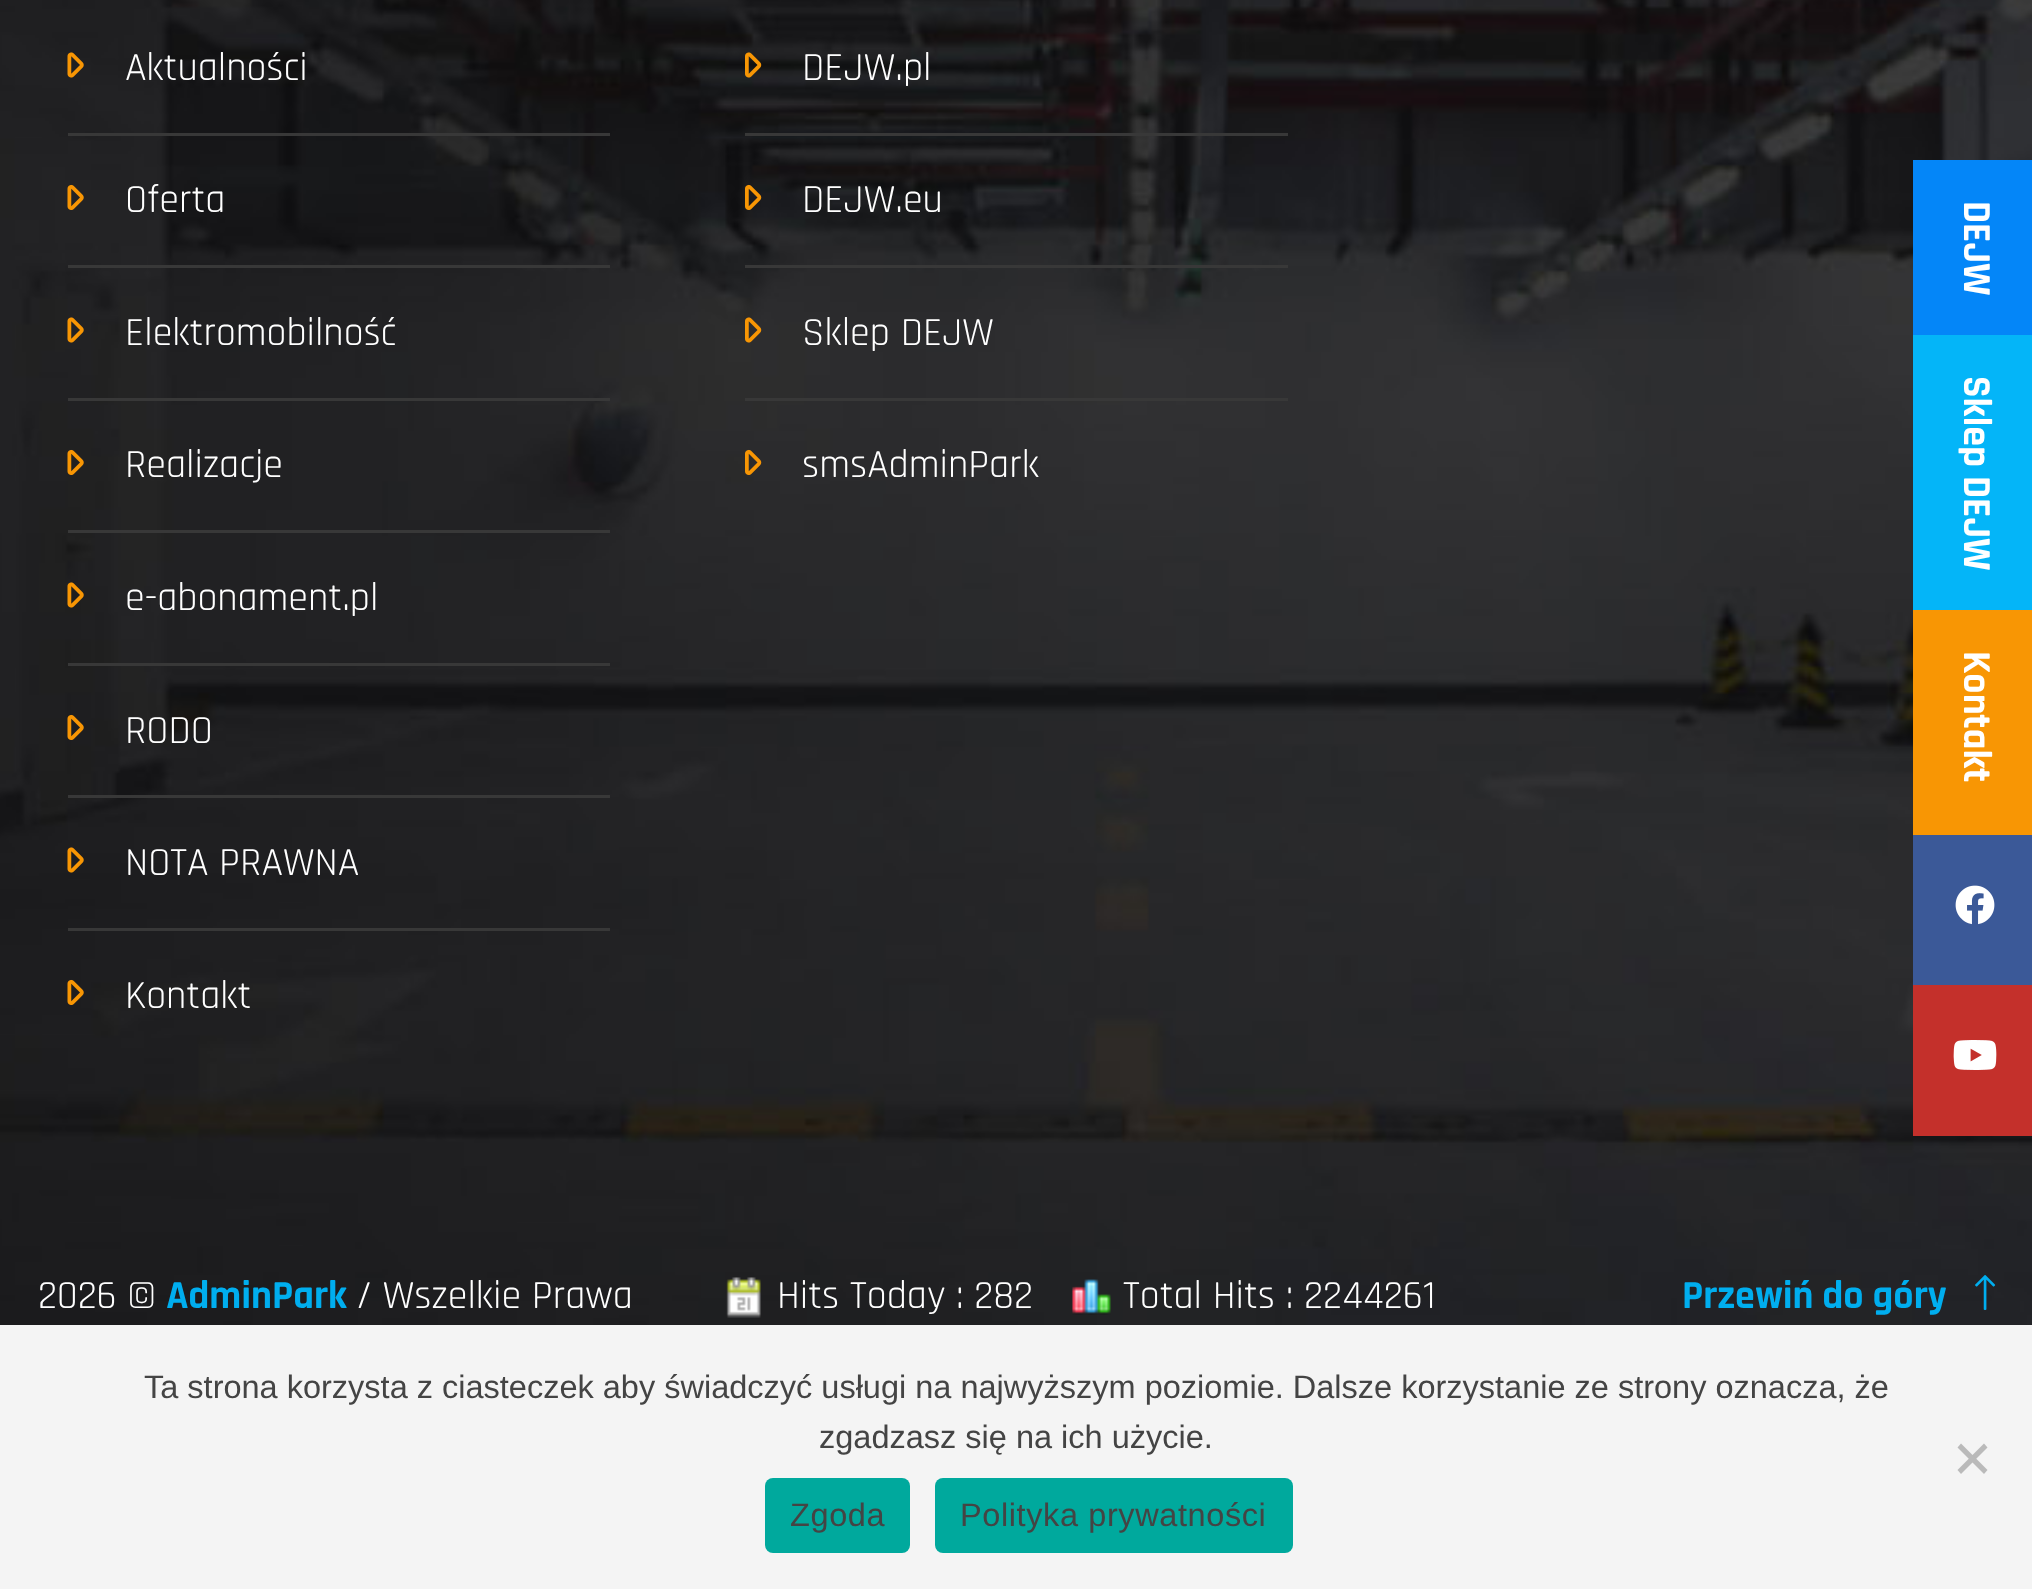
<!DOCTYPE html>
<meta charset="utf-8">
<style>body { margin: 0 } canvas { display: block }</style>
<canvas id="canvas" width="2032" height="1589"></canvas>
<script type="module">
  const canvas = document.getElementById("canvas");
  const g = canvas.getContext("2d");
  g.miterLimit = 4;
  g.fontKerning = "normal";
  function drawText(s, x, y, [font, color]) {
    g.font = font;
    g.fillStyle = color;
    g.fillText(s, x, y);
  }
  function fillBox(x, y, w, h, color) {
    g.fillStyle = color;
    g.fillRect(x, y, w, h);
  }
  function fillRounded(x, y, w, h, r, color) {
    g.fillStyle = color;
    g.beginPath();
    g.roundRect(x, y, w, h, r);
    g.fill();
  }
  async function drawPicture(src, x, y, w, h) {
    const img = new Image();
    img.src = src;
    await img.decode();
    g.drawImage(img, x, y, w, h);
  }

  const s1 = ["40px Rajdhani", "#FFFFFF"];
  const s2 = ["bold 40px Rajdhani", "#00AEEF"];
  const s3 = ["32.5px Liberation Sans", "#444444"];

  fillBox(0, 0, 2032, 1589, "#FFFFFF");
  await drawPicture("pic1.png", 0, 0, 2032, 1325);
  fillBox(68, 133, 542, 3, "#383838");
  await drawPicture("pic2.png", 67, 52, 17, 26);
  drawText("Aktualności", 125, 80, s1);
  fillBox(68, 265, 542, 3, "#383838");
  await drawPicture("pic3.png", 67, 184, 17, 26);
  drawText("Oferta", 125, 212, s1);
  fillBox(68, 398, 542, 3, "#383838");
  await drawPicture("pic4.png", 67, 317, 17, 26);
  drawText("Elektromobilność", 125, 345, s1);
  fillBox(68, 530, 542, 3, "#383838");
  await drawPicture("pic5.png", 67, 449, 17, 26);
  drawText("Realizacje", 125, 477, s1);
  fillBox(68, 663, 542, 3, "#383838");
  await drawPicture("pic6.png", 67, 582, 17, 26);
  drawText("e-abonament.pl", 125, 610, s1);
  fillBox(68, 795, 542, 3, "#383838");
  await drawPicture("pic7.png", 67, 714, 17, 26);
  drawText("RODO", 125, 743, s1);
  fillBox(68, 928, 542, 3, "#383838");
  await drawPicture("pic8.png", 67, 847, 17, 26);
  drawText("NOTA PRAWNA", 125, 875, s1);
  await drawPicture("pic9.png", 67, 979, 17, 26);
  drawText("Kontakt", 125, 1008, s1);
  fillBox(745, 133, 543, 3, "#383838");
  await drawPicture("pic10.png", 745, 52, 17, 26);
  drawText("DEJW.pl", 802, 80, s1);
  fillBox(745, 265, 543, 3, "#383838");
  await drawPicture("pic11.png", 745, 184, 17, 26);
  drawText("DEJW.eu", 802, 212, s1);
  fillBox(745, 398, 543, 3, "#383838");
  await drawPicture("pic12.png", 745, 317, 17, 26);
  drawText("Sklep DEJW", 802, 345, s1);
  await drawPicture("pic13.png", 745, 449, 17, 26);
  drawText("smsAdminPark", 802, 477, s1);
  drawText("2026 ©", 38, 1308, s1);
  drawText("AdminPark", 166, 1308, s2);
  drawText("/ Wszelkie Prawa", 356, 1308, s1);
  await drawPicture("pic14.png", 726, 1277, 35, 41);
  drawText("Hits Today : 282", 777, 1308, s1);
  await drawPicture("pic15.png", 1072, 1279, 39, 36);
  drawText("Total Hits : 2244261", 1123, 1308, s1);
  drawText("Przewiń do góry", 1682, 1308, s2);
  await drawPicture("pic16.png", 1975, 1275, 21, 35);
  fillBox(1913, 160, 119, 175, "#0486F8");
  g.fillStyle = "#FFFFFF";
  g.save();
  g.translate(1964, 201);
  g.rotate(90 * Math.PI / 180);
  g.fillText("DEJW", 0, 0);
  g.restore();
  fillBox(1913, 335, 119, 275, "#04B5F8");
  g.fillStyle = "#FFFFFF";
  g.save();
  g.translate(1964, 376);
  g.rotate(90 * Math.PI / 180);
  g.fillText("Sklep DEJW", 0, 0);
  g.restore();
  fillBox(1913, 610, 119, 225, "#F89604");
  g.fillStyle = "#FFFFFF";
  g.save();
  g.translate(1964, 651);
  g.rotate(90 * Math.PI / 180);
  g.fillText("Kontakt", 0, 0);
  g.restore();
  fillBox(1913, 835, 119, 150, "#3B5998");
  await drawPicture("pic17.png", 1955, 885, 40, 40);
  fillBox(1913, 985, 119, 151, "#C4302B");
  await drawPicture("pic18.png", 1953, 1040, 44, 30);
  fillBox(0, 1325, 2032, 264, "#F4F4F4");
  drawText("Ta strona korzysta z ciasteczek aby świadczyć usługi na najwyższym poziomie. Dalsze korzystanie ze strony oznacza, że", 144, 1398, s3);
  drawText("zgadzasz się na ich użycie.", 819, 1448, s3);
  g.fillStyle = "#BABABA";
  g.beginPath();
  g.moveTo(1984, 1443.5);
  g.lineTo(1987.5, 1447.5);
  g.lineTo(1961, 1474);
  g.lineTo(1957.5, 1470);
  g.closePath();
  g.fill();
  g.beginPath();
  g.moveTo(1957.5, 1447.5);
  g.lineTo(1961, 1443.5);
  g.lineTo(1987.5, 1470);
  g.lineTo(1984, 1474);
  g.closePath();
  g.fill();
  fillRounded(765, 1478, 145, 75, 8, "#00A99D");
  g.letterSpacing = "0.6px";
  drawText("Zgoda", 790, 1526, s3);
  fillRounded(935, 1478, 358, 75, 8, "#00A99D");
  drawText("Polityka prywatności", 960, 1526, s3);
</script>
